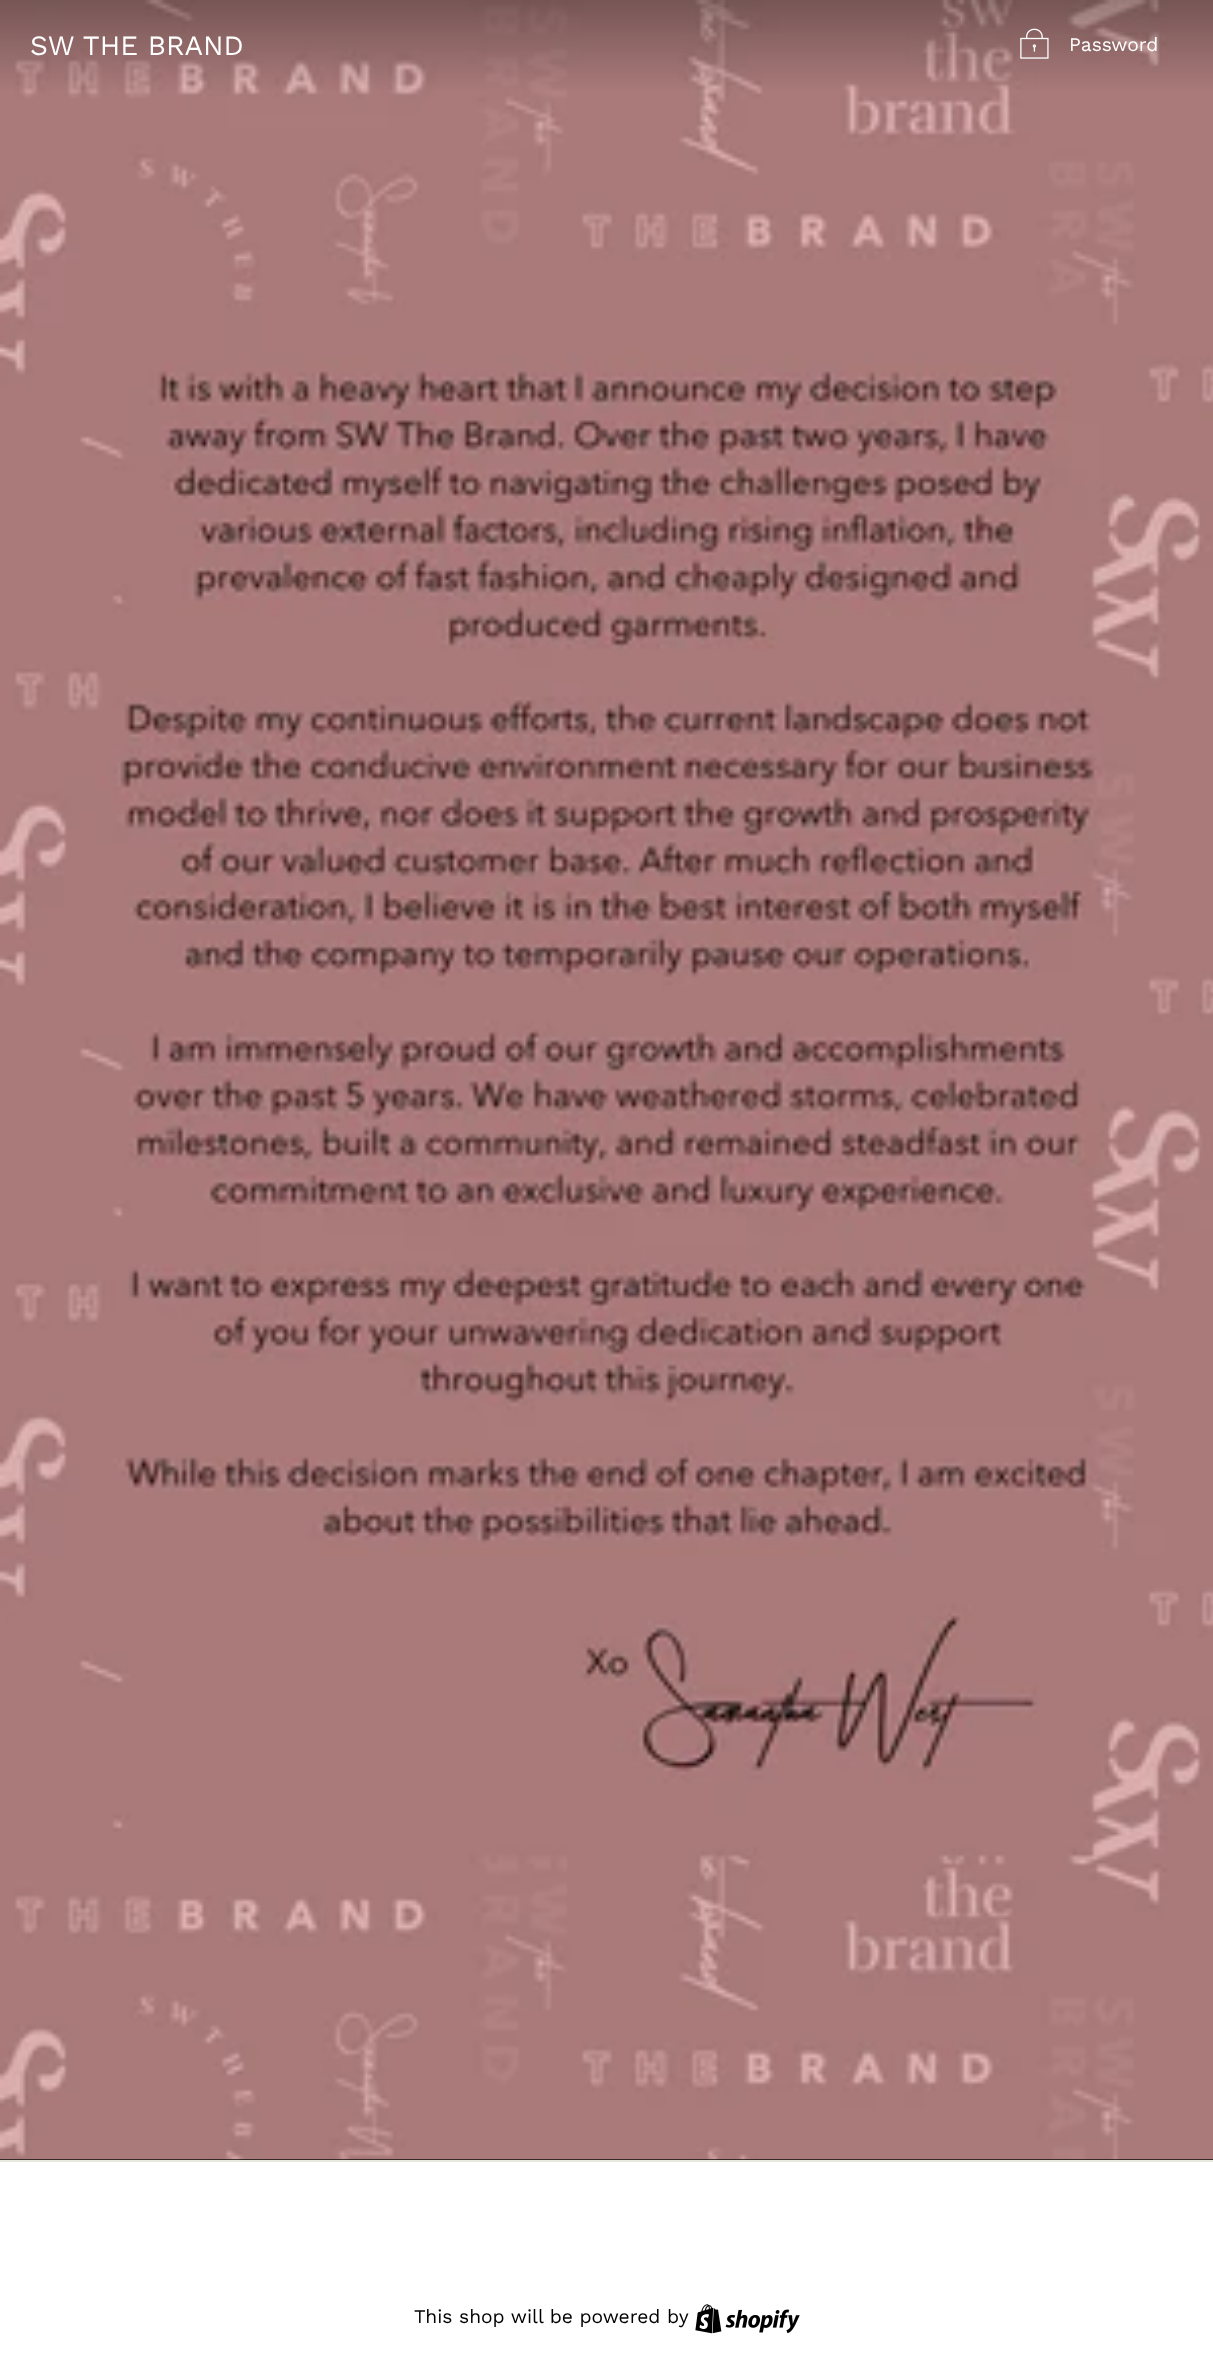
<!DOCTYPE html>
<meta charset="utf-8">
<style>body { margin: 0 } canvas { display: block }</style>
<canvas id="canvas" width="1213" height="2374"></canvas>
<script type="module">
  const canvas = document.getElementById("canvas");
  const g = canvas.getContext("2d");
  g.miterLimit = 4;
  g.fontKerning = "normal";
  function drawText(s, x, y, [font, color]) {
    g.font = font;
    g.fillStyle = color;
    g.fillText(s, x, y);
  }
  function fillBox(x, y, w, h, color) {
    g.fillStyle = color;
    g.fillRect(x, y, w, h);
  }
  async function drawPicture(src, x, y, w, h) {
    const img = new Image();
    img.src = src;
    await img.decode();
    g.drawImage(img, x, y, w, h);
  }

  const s1 = ["28px Work Sans", "#FFFFFF"];
  const s2 = ["19.25px Work Sans", "#FFFFFF"];
  const s3 = ["19.25px Work Sans", "#000000"];

  fillBox(0, 0, 1213, 2374, "#FFFFFF");
  fillBox(0, 2159, 1213, 1, "#0F0F0F");
  await drawPicture("pic1.png", 0, 0, 1213, 2160);
  drawText("SW THE BRAND", 30, 55, s1);
  await drawPicture("pic2.png", 1020, 28, 29, 31);
  drawText("Password", 1069, 51, s2);
  fillBox(0, 2160, 1213, 2, "#E8E8E1");
  drawText("This shop will be powered by", 414, 2323, s3);
  await drawPicture("pic3.png", 695, 2304, 105, 30);
</script>
